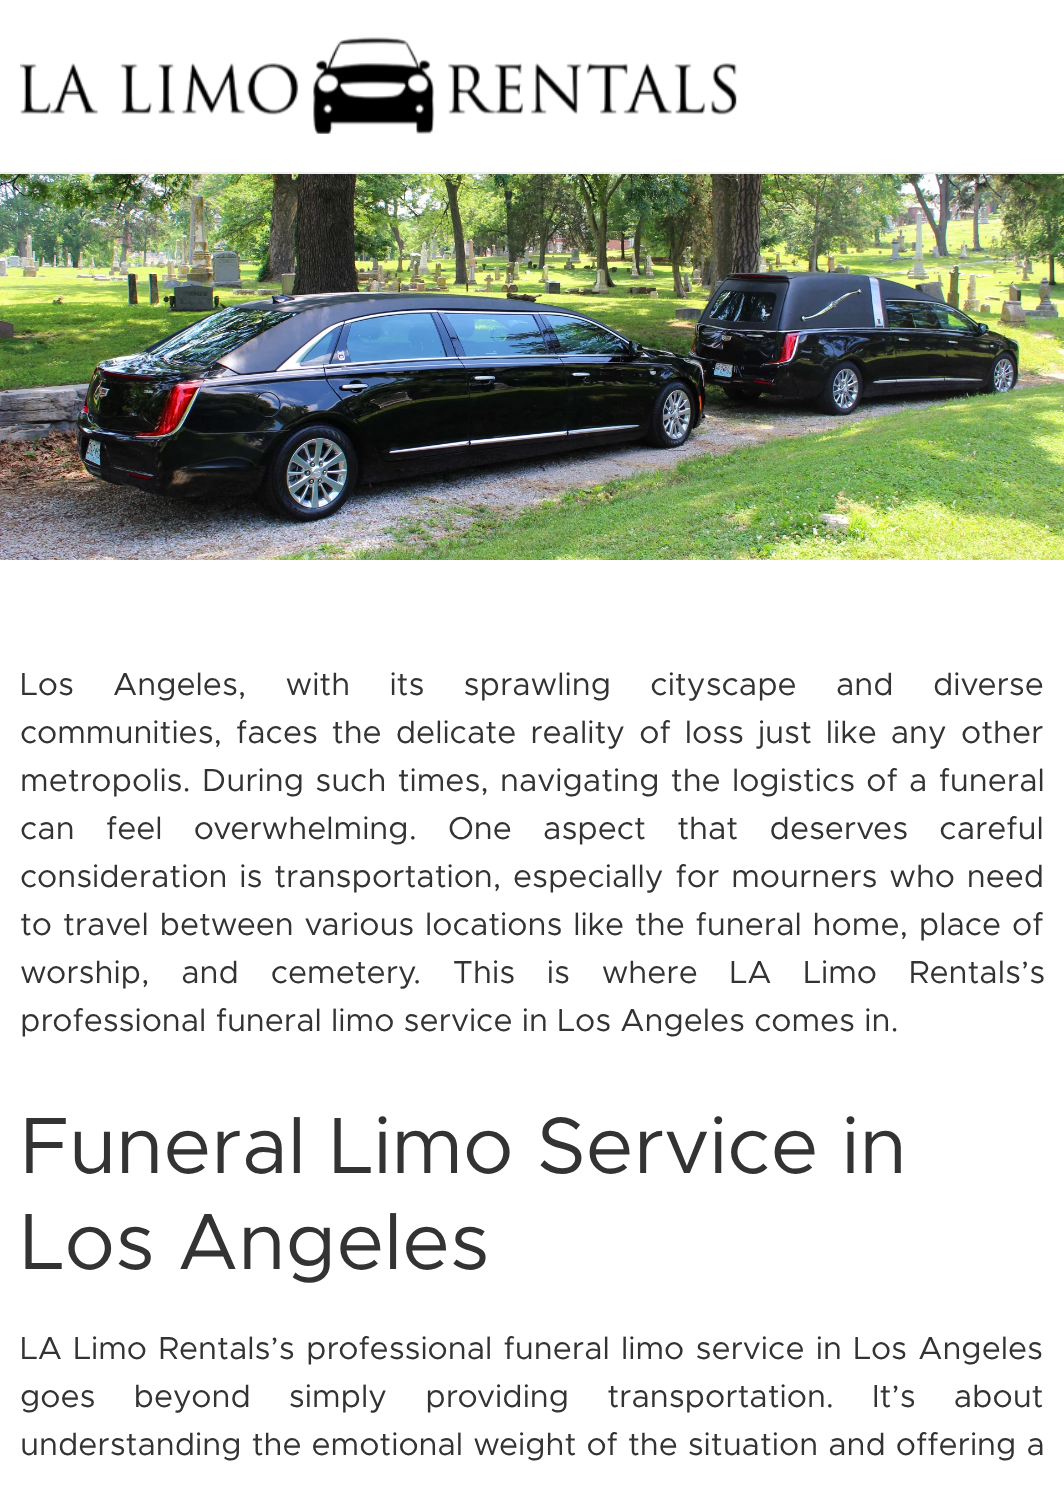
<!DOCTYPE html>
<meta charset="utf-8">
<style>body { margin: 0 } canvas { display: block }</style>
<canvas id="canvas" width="1064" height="1495"></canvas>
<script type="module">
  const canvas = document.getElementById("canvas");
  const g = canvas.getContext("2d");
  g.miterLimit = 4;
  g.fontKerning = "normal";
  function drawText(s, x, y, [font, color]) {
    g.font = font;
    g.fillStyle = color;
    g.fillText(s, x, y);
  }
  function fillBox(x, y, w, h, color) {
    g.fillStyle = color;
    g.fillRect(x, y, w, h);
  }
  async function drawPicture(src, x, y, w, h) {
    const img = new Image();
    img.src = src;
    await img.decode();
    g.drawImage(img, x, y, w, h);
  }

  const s1 = ["32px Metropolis", "#333333"];
  const s2 = ["80px Metropolis", "#333333"];

  fillBox(0, 0, 1064, 1495, "#FFFFFF");
  fillBox(0, 172, 1064, 2, "#EEEEEE");
  await drawPicture("pic1.png", 20, 37, 717, 97);
  await drawPicture("pic2.png", 0, 174, 1064, 386);
  g.wordSpacing = "30px";
  drawText("Los Angeles, with its sprawling cityscape and diverse", 20, 695, s1);
  g.wordSpacing = "4.75px";
  drawText("communities, faces the delicate reality of loss just like any other", 20, 743, s1);
  g.wordSpacing = "2px";
  drawText("metropolis. During such times, navigating the logistics of a funeral", 20, 791, s1);
  g.wordSpacing = "22px";
  drawText("can feel overwhelming. One aspect that deserves careful", 20, 839, s1);
  g.wordSpacing = "2.5px";
  drawText("consideration is transportation, especially for mourners who need", 20, 887, s1);
  g.wordSpacing = "1.6px";
  drawText("to travel between various locations like the funeral home, place of", 20, 935, s1);
  g.wordSpacing = "22.5px";
  drawText("worship, and cemetery. This is where LA Limo Rentals’s", 20, 983, s1);
  g.wordSpacing = "0px";
  drawText("professional funeral limo service in Los Angeles comes in.", 20, 1031, s1);
  drawText("Funeral Limo Service in", 20, 1173, s2);
  drawText("Los Angeles", 20, 1269, s2);
  g.wordSpacing = "2px";
  drawText("LA Limo Rentals’s professional funeral limo service in Los Angeles", 20, 1359, s1);
  g.wordSpacing = "28.75px";
  drawText("goes beyond simply providing transportation. It’s about", 20, 1407, s1);
  g.wordSpacing = "0.75px";
  drawText("understanding the emotional weight of the situation and offering a", 20, 1455, s1);
</script>
